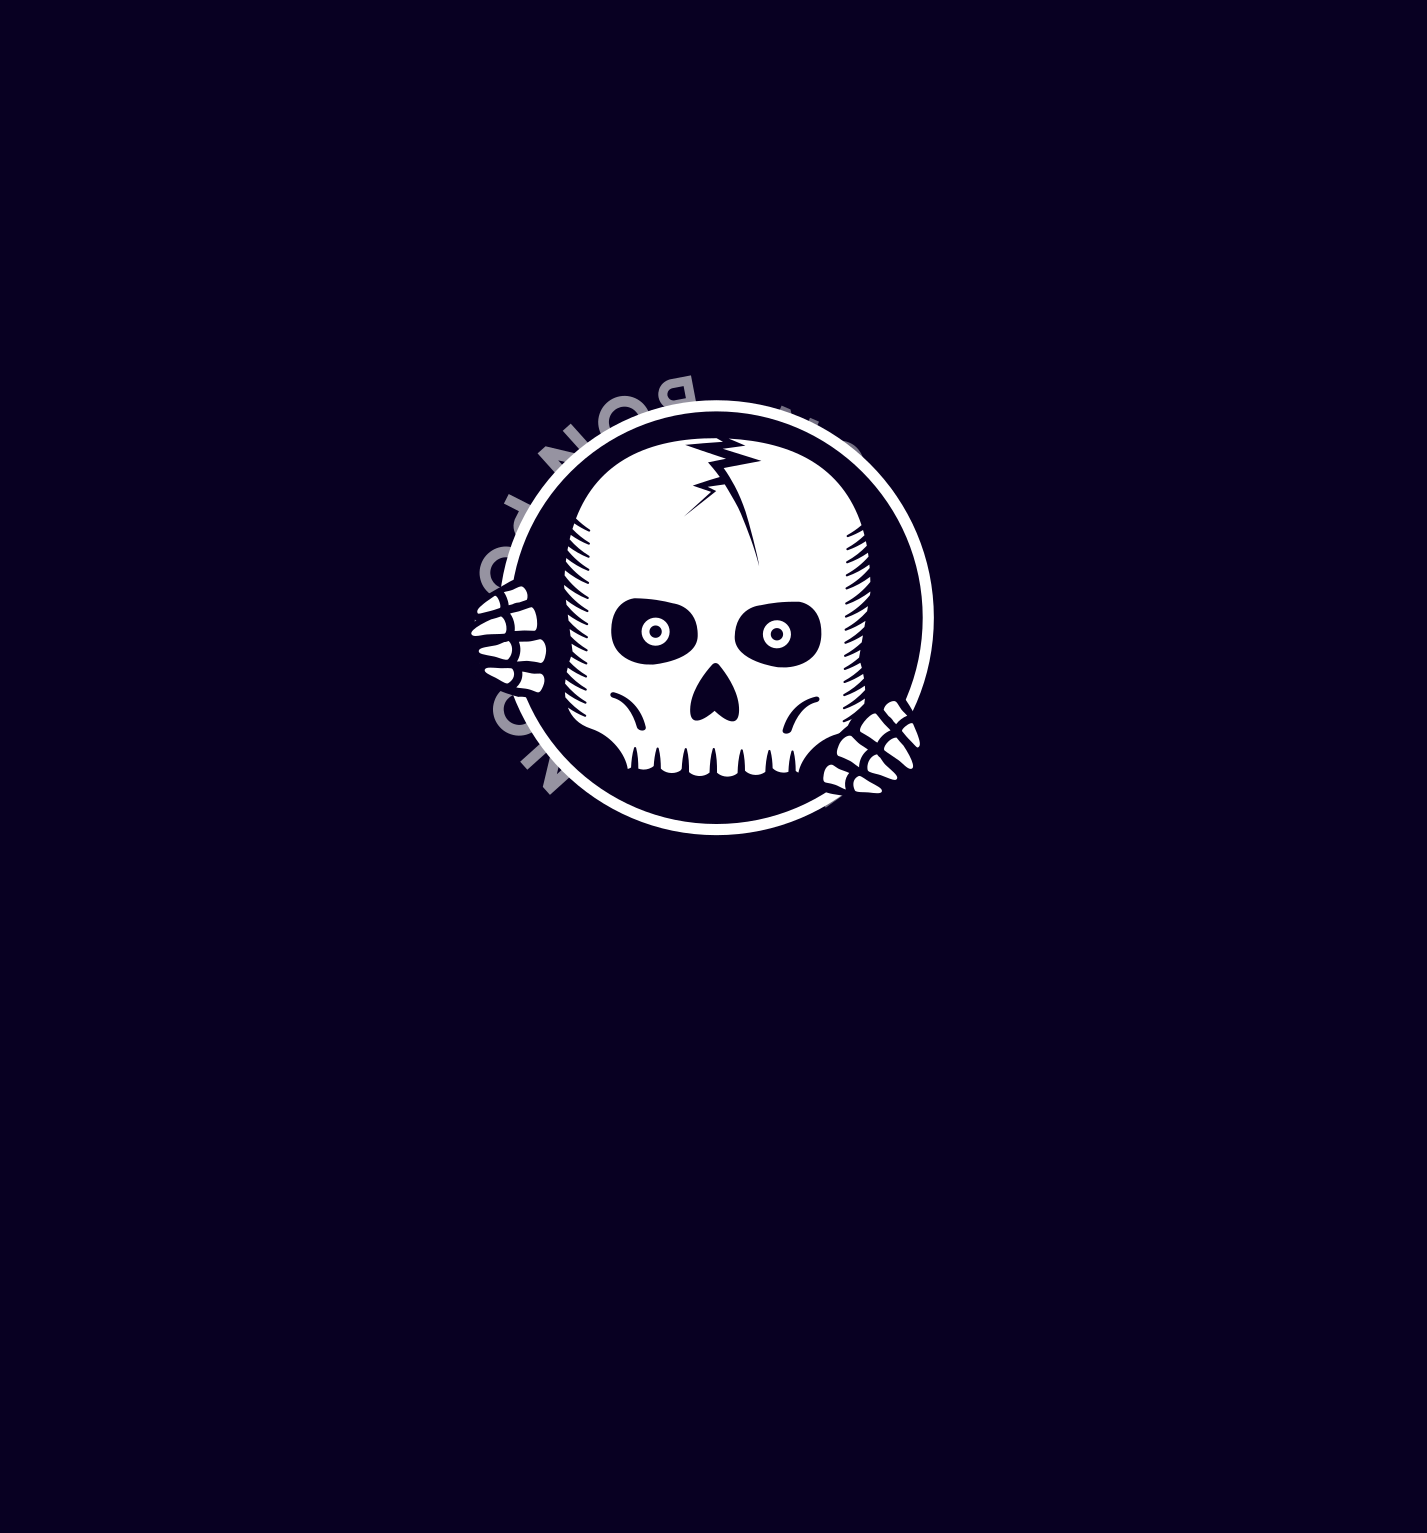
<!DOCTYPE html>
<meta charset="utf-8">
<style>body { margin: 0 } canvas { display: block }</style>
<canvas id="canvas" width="1427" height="1533"></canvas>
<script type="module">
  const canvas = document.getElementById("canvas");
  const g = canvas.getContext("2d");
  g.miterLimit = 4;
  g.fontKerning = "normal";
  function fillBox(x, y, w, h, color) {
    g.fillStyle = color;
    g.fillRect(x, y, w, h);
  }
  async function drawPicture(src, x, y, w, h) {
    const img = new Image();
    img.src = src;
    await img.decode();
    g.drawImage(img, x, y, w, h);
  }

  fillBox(0, 0, 1427, 1533, "#080022");
  await drawPicture("pic1.png", 471, 375, 463, 461);
</script>
